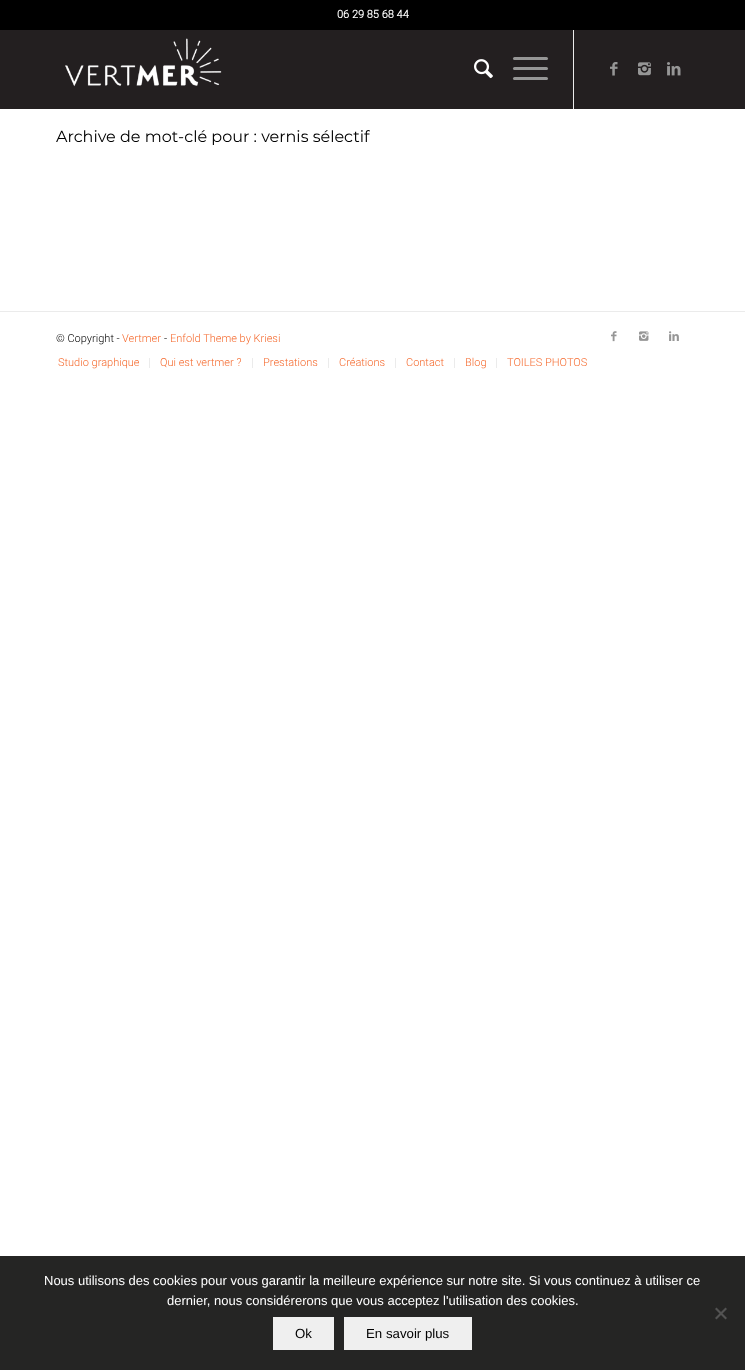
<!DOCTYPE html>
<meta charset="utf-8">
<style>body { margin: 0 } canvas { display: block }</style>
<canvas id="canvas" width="745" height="1370"></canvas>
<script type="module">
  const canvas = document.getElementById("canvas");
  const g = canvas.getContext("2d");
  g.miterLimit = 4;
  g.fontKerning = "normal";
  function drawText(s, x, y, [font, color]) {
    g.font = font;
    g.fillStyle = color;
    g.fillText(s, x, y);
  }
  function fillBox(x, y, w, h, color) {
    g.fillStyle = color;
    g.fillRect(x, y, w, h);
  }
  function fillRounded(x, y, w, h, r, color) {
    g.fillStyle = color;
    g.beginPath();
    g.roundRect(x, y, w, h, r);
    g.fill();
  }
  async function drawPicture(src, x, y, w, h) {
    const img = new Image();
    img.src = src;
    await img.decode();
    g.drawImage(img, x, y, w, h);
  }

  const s1 = ["bold 11px Roboto", "#FFFFFF"];
  const s2 = ["100 16px Montserrat", "#000000"];
  const s3 = ["300 11px Roboto", "#000000"];
  const s4 = ["300 11px Roboto", "#F56A2E"];
  const s5 = ["13px Liberation Sans", "#FFFFFF"];
  const s6 = ["13.25px Liberation Sans", "#000000"];

  fillBox(0, 0, 745, 1370, "#FFFFFF");
  fillBox(0, 30, 745, 79, "#231F20");
  fillBox(573, 29, 1, 80, "#EBEBEB");
  fillBox(0, 0, 745, 30, "#000000");
  drawText("06 29 85 68 44", 337, 18, s1);
  await drawPicture("pic1.png", 65, 38, 157, 49);
  await drawPicture("pic2.png", 474, 59, 19, 20);
  fillRounded(513, 67, 35, 3, 1.5, "#969696");
  fillRounded(513, 57, 35, 3, 1.5, "#969696");
  fillRounded(513, 77, 35, 3, 1.5, "#969696");
  await drawPicture("pic3.png", 610, 62, 8, 14);
  await drawPicture("pic4.png", 638, 62, 13, 14);
  await drawPicture("pic5.png", 667, 62, 14, 14);
  drawText("Archive de mot-clé pour : vernis sélectif", 56, 142, s2);
  fillBox(0, 311, 745, 1, "#EBEBEB");
  drawText("© Copyright -", 56, 342, s3);
  drawText("Vertmer", 122, 342, s4);
  drawText("-", 164, 342, s3);
  drawText("Enfold Theme by Kriesi", 170, 342, s4);
  await drawPicture("pic6.png", 611, 331, 6, 11);
  await drawPicture("pic7.png", 639, 331, 10, 10);
  await drawPicture("pic8.png", 669, 331, 10, 10);
  drawText("Studio graphique", 58, 366, s4);
  fillBox(149, 358, 1, 10, "#EBEBEB");
  drawText("Qui est vertmer ?", 160, 366, s4);
  fillBox(252, 358, 1, 10, "#EBEBEB");
  drawText("Prestations", 263, 366, s4);
  fillBox(328, 358, 1, 10, "#EBEBEB");
  drawText("Créations", 339, 366, s4);
  fillBox(395, 358, 1, 10, "#EBEBEB");
  drawText("Contact", 406, 366, s4);
  fillBox(454, 358, 1, 10, "#EBEBEB");
  drawText("Blog", 465, 366, s4);
  fillBox(496, 358, 1, 10, "#EBEBEB");
  drawText("TOILES PHOTOS", 507, 366, s4);
  fillBox(0, 1256, 745, 114, "#252524");
  drawText("Nous utilisons des cookies pour vous garantir la meilleure expérience sur notre site. Si vous continuez à utiliser ce", 44, 1285, s5);
  drawText("dernier, nous considérerons que vous acceptez l'utilisation des cookies.", 167, 1305, s5);
  g.fillStyle = "#535352";
  g.beginPath();
  g.moveTo(725.5, 1307.5);
  g.lineTo(727, 1309);
  g.lineTo(716.5, 1319.5);
  g.lineTo(715, 1318);
  g.closePath();
  g.fill();
  g.beginPath();
  g.moveTo(715, 1309);
  g.lineTo(716.5, 1307.5);
  g.lineTo(727, 1318);
  g.lineTo(725.5, 1319.5);
  g.closePath();
  g.fill();
  fillBox(273, 1317, 61, 33, "#EFEFEF");
  drawText("Ok", 295, 1338, s6);
  fillBox(344, 1317, 128, 33, "#EFEFEF");
  drawText("En savoir plus", 366, 1338, s6);
</script>
